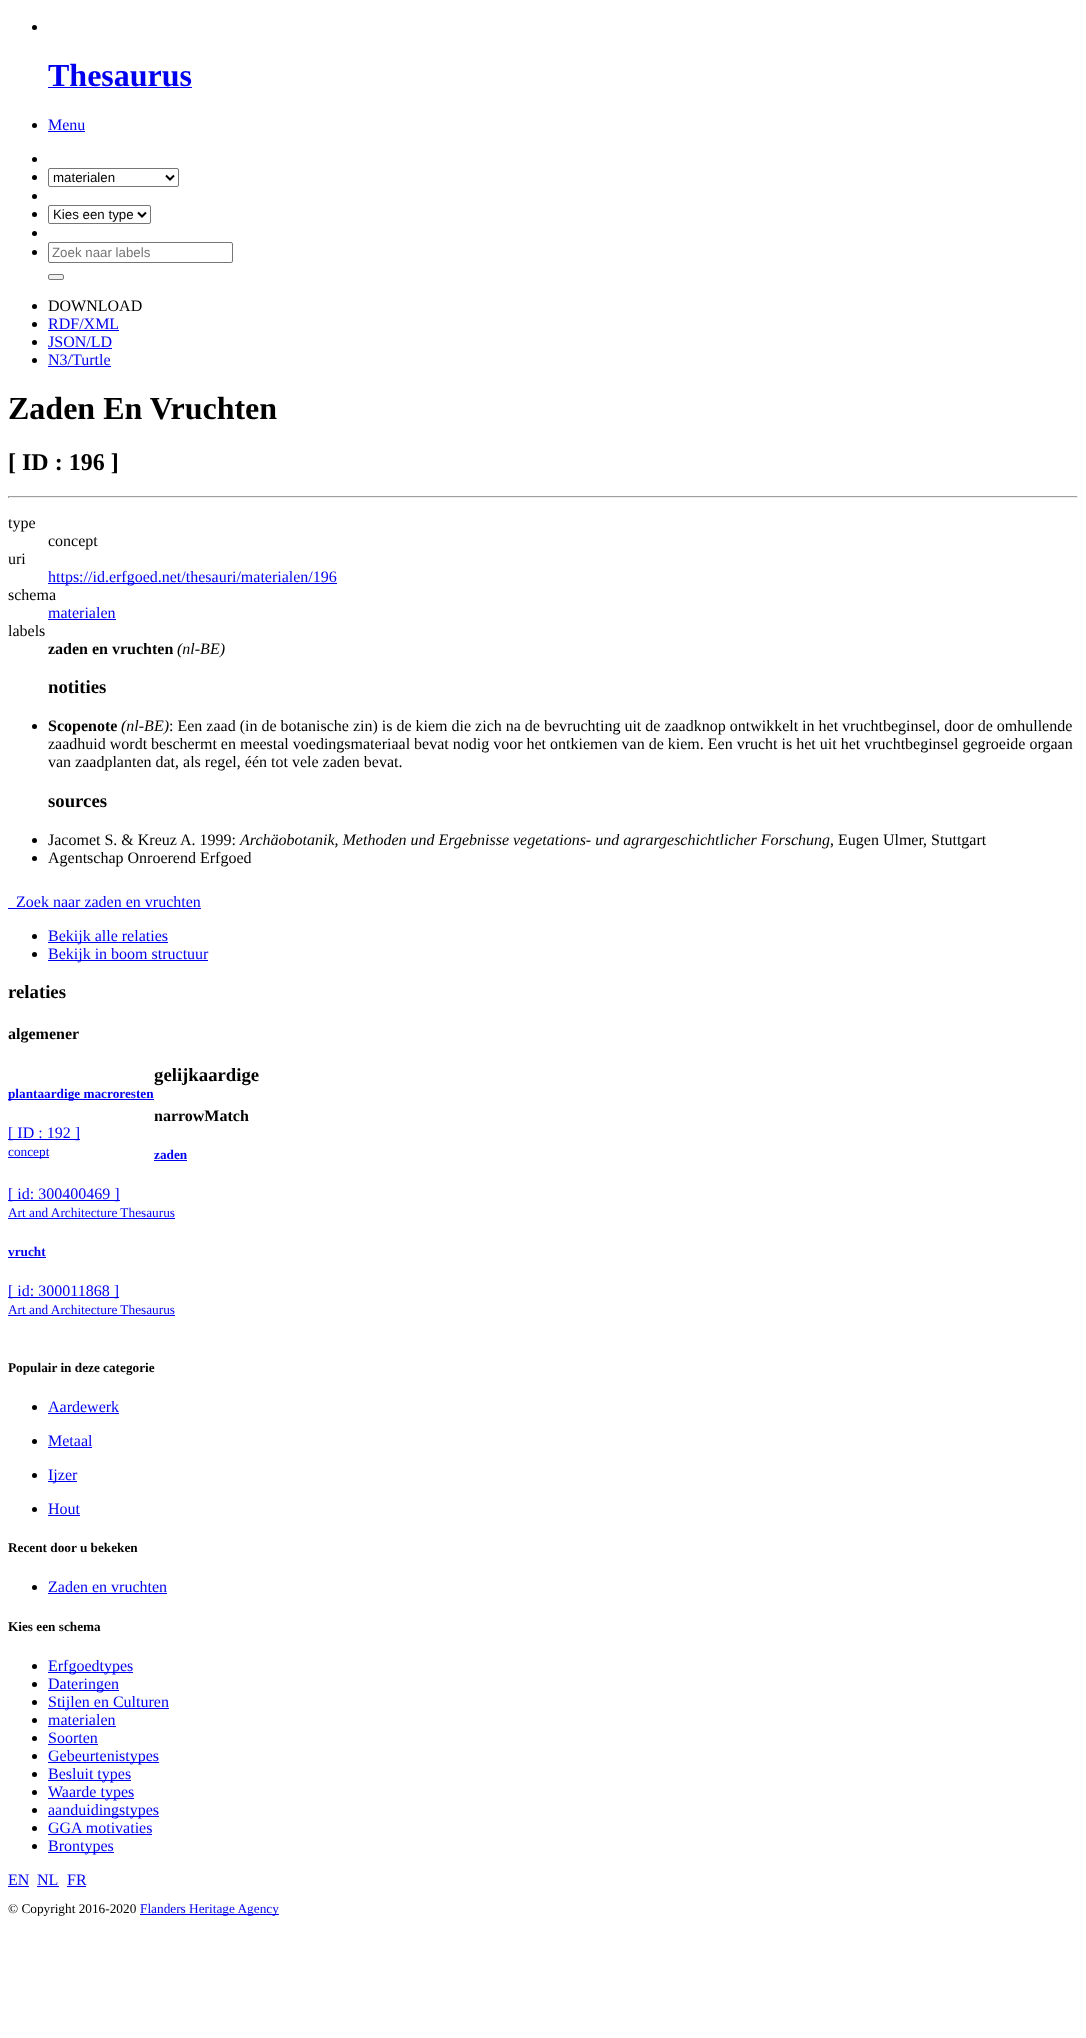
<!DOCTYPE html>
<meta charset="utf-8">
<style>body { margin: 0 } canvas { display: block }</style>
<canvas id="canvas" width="1086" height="2038"></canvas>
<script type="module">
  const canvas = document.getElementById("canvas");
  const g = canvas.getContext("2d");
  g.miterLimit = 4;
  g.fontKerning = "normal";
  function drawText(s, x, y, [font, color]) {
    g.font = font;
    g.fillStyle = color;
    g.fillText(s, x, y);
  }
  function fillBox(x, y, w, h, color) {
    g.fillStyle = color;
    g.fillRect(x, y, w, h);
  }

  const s1 = ["bold 32px Liberation Serif", "#0000EE"];
  const s2 = ["16px Liberation Serif", "#0000EE"];
  const s3 = ["13.3px Liberation Sans", "#000000"];
  const s4 = ["13.3px Liberation Sans", "#757575"];
  const s5 = ["16px Liberation Serif", "#000000"];
  const s6 = ["bold 32px Liberation Serif", "#000000"];
  const s7 = ["bold 24px Liberation Serif", "#000000"];
  const s8 = ["bold 16px Liberation Serif", "#000000"];
  const s9 = ["italic 16px Liberation Serif", "#000000"];
  const s10 = ["bold 18.75px Liberation Serif", "#000000"];
  const s11 = ["bold 13.25px Liberation Serif", "#0000EE"];
  const s12 = ["13.3px Liberation Serif", "#0000EE"];
  const s13 = ["bold 13.25px Liberation Serif", "#000000"];
  const s14 = ["13.3px Liberation Serif", "#000000"];

  fillBox(0, 0, 1086, 2038, "#FFFFFF");
  g.fillStyle = "#000000";
  g.beginPath();
  g.arc(34.5, 27.5, 2.5, 0, Math.PI * 2);
  g.fill();
  drawText("Thesaurus", 48, 86, s1);
  fillBox(48, 87, 144, 1, "#0000EE");
  g.fillStyle = "#000000";
  g.beginPath();
  g.arc(34.5, 125.5, 2.5, 0, Math.PI * 2);
  g.fill();
  drawText("Menu", 48, 130, s2);
  fillBox(48, 131, 37, 1, "#0000EE");
  g.fillStyle = "#000000";
  g.beginPath();
  g.arc(34.5, 159.5, 2.5, 0, Math.PI * 2);
  g.fill();
  g.beginPath();
  g.arc(34.5, 177.5, 2.5, 0, Math.PI * 2);
  g.fill();
  g.beginPath();
  g.roundRect(48.5, 168.5, 130, 18, 1.5);
  g.strokeStyle = "#767676";
  g.stroke();
  g.beginPath();
  g.moveTo(166, 175.5);
  g.lineTo(170, 179.5);
  g.lineTo(174, 175.5);
  g.strokeStyle = "#000000";
  g.lineWidth = 2;
  g.stroke();
  drawText("materialen", 53, 182, s3);
  g.beginPath();
  g.arc(34.5, 196.5, 2.5, 0, Math.PI * 2);
  g.fill();
  g.beginPath();
  g.arc(34.5, 214.5, 2.5, 0, Math.PI * 2);
  g.fill();
  g.beginPath();
  g.roundRect(48.5, 205.5, 102, 18, 1.5);
  g.strokeStyle = "#767676";
  g.lineWidth = 1;
  g.stroke();
  g.beginPath();
  g.moveTo(138, 212.5);
  g.lineTo(142, 216.5);
  g.lineTo(146, 212.5);
  g.strokeStyle = "#000000";
  g.lineWidth = 2;
  g.stroke();
  drawText("Kies een type", 53, 219, s3);
  g.beginPath();
  g.arc(34.5, 233.5, 2.5, 0, Math.PI * 2);
  g.fill();
  g.beginPath();
  g.arc(34.5, 252.5, 2.5, 0, Math.PI * 2);
  g.fill();
  g.beginPath();
  g.roundRect(48.5, 242.5, 184, 20, 1.5);
  g.strokeStyle = "#767676";
  g.lineWidth = 1;
  g.stroke();
  drawText("Zoek naar labels", 52, 257, s4);
  g.fillStyle = "#EFEFEF";
  g.beginPath();
  g.roundRect(48.5, 274.5, 15, 5, 1.5);
  g.fill();
  g.stroke();
  g.fillStyle = "#000000";
  g.beginPath();
  g.arc(34.5, 306.5, 2.5, 0, Math.PI * 2);
  g.fill();
  drawText("DOWNLOAD", 48, 311, s5);
  g.beginPath();
  g.arc(34.5, 324.5, 2.5, 0, Math.PI * 2);
  g.fill();
  drawText("RDF/XML", 48, 329, s2);
  fillBox(48, 330, 71, 1, "#0000EE");
  g.fillStyle = "#000000";
  g.beginPath();
  g.arc(34.5, 342.5, 2.5, 0, Math.PI * 2);
  g.fill();
  drawText("JSON/LD", 48, 347, s2);
  fillBox(48, 348, 64, 1, "#0000EE");
  g.fillStyle = "#000000";
  g.beginPath();
  g.arc(34.5, 360.5, 2.5, 0, Math.PI * 2);
  g.fill();
  drawText("N3/Turtle", 48, 365, s2);
  fillBox(48, 366, 63, 1, "#0000EE");
  drawText("Zaden En Vruchten", 8, 419, s6);
  drawText("[ ID : 196 ]", 8, 470, s7);
  fillBox(8, 496, 1070, 1, "#9F9F9F");
  fillBox(1077, 496, 1, 2, "#EEEEEE");
  fillBox(8, 497, 1070, 1, "#EEEEEE");
  fillBox(8, 496, 1, 2, "#9F9F9F");
  drawText("type", 8, 528, s5);
  drawText("concept", 48, 546, s5);
  drawText("uri", 8, 564, s5);
  fillBox(48, 583, 289, 1, "#0000EE");
  drawText("https://id.erfgoed.net/thesauri/materialen/196", 48, 582, s2);
  drawText("schema", 8, 600, s5);
  drawText("materialen", 48, 618, s2);
  fillBox(48, 619, 68, 1, "#0000EE");
  drawText("labels", 8, 636, s5);
  drawText("zaden en vruchten", 48, 654, s8);
  drawText("(nl-BE)", 177, 654, s9);
  drawText("notities", 48, 693, s10);
  g.beginPath();
  g.arc(34.5, 726.5, 2.5, 0, Math.PI * 2);
  g.fill();
  drawText("Scopenote", 48, 731, s8);
  drawText("(nl-BE)", 121, 731, s9);
  drawText(": Een zaad (in de botanische zin) is de kiem die zich na de bevruchting uit de zaadknop ontwikkelt in het vruchtbeginsel, door de omhullende", 169, 731, s5);
  drawText("zaadhuid wordt beschermt en meestal voedingsmateriaal bevat nodig voor het ontkiemen van de kiem. Een vrucht is het uit het vruchtbeginsel gegroeide orgaan", 48, 749, s5);
  drawText("van zaadplanten dat, als regel, één tot vele zaden bevat.", 48, 767, s5);
  drawText("sources", 48, 807, s10);
  g.beginPath();
  g.arc(34.5, 840.5, 2.5, 0, Math.PI * 2);
  g.fill();
  drawText("Jacomet S. & Kreuz A. 1999:", 48, 845, s5);
  drawText("Archäobotanik, Methoden und Ergebnisse vegetations- und agrargeschichtlicher Forschung", 240, 845, s9);
  drawText(", Eugen Ulmer, Stuttgart", 830, 845, s5);
  g.beginPath();
  g.arc(34.5, 858.5, 2.5, 0, Math.PI * 2);
  g.fill();
  drawText("Agentschap Onroerend Erfgoed", 48, 863, s5);
  drawText("Zoek naar zaden en vruchten", 16, 907, s2);
  fillBox(8, 908, 193, 1, "#0000EE");
  g.fillStyle = "#000000";
  g.beginPath();
  g.arc(34.5, 936.5, 2.5, 0, Math.PI * 2);
  g.fill();
  fillBox(48, 942, 120, 1, "#0000EE");
  drawText("Bekijk alle relaties", 48, 941, s2);
  g.fillStyle = "#000000";
  g.beginPath();
  g.arc(34.5, 954.5, 2.5, 0, Math.PI * 2);
  g.fill();
  fillBox(48, 960, 160, 1, "#0000EE");
  drawText("Bekijk in boom structuur", 48, 959, s2);
  drawText("relaties", 8, 998, s10);
  drawText("algemener", 8, 1039, s8);
  fillBox(8, 1099, 146, 1, "#0000EE");
  drawText("plantaardige macroresten", 8, 1098, s11);
  fillBox(8, 1139, 72, 1, "#0000EE");
  drawText("[ ID : 192 ]", 8, 1138, s2);
  fillBox(8, 1157, 41, 1, "#0000EE");
  drawText("concept", 8, 1156, s12);
  drawText("gelijkaardige", 154, 1081, s10);
  drawText("narrowMatch", 154, 1121, s8);
  drawText("zaden", 154, 1159, s11);
  fillBox(154, 1160, 33, 1, "#0000EE");
  fillBox(8, 1200, 112, 1, "#0000EE");
  drawText("[ id: 300400469 ]", 8, 1199, s2);
  drawText("Art and Architecture Thesaurus", 8, 1217, s12);
  fillBox(8, 1218, 167, 1, "#0000EE");
  drawText("vrucht", 8, 1256, s11);
  fillBox(8, 1257, 38, 1, "#0000EE");
  fillBox(8, 1297, 111, 1, "#0000EE");
  drawText("[ id: 300011868 ]", 8, 1296, s2);
  drawText("Art and Architecture Thesaurus", 8, 1314, s12);
  fillBox(8, 1315, 167, 1, "#0000EE");
  drawText("Populair in deze categorie", 8, 1372, s13);
  g.beginPath();
  g.arc(34.5, 1407.5, 2.5, 0, Math.PI * 2);
  g.fill();
  drawText("Aardewerk", 48, 1412, s2);
  fillBox(48, 1413, 71, 1, "#0000EE");
  g.fillStyle = "#000000";
  g.beginPath();
  g.arc(34.5, 1441.5, 2.5, 0, Math.PI * 2);
  g.fill();
  drawText("Metaal", 48, 1446, s2);
  fillBox(48, 1447, 44, 1, "#0000EE");
  g.fillStyle = "#000000";
  g.beginPath();
  g.arc(34.5, 1475.5, 2.5, 0, Math.PI * 2);
  g.fill();
  fillBox(48, 1481, 29, 1, "#0000EE");
  drawText("Ijzer", 48, 1480, s2);
  g.fillStyle = "#000000";
  g.beginPath();
  g.arc(34.5, 1509.5, 2.5, 0, Math.PI * 2);
  g.fill();
  drawText("Hout", 48, 1514, s2);
  fillBox(48, 1515, 32, 1, "#0000EE");
  drawText("Recent door u bekeken", 8, 1552, s13);
  g.beginPath();
  g.arc(34.5, 1587.5, 2.5, 0, Math.PI * 2);
  g.fill();
  drawText("Zaden en vruchten", 48, 1592, s2);
  fillBox(48, 1593, 119, 1, "#0000EE");
  drawText("Kies een schema", 8, 1631, s13);
  g.beginPath();
  g.arc(34.5, 1666.5, 2.5, 0, Math.PI * 2);
  g.fill();
  fillBox(48, 1672, 85, 1, "#0000EE");
  drawText("Erfgoedtypes", 48, 1671, s2);
  g.fillStyle = "#000000";
  g.beginPath();
  g.arc(34.5, 1684.5, 2.5, 0, Math.PI * 2);
  g.fill();
  fillBox(48, 1690, 71, 1, "#0000EE");
  drawText("Dateringen", 48, 1689, s2);
  g.fillStyle = "#000000";
  g.beginPath();
  g.arc(34.5, 1702.5, 2.5, 0, Math.PI * 2);
  g.fill();
  fillBox(48, 1708, 121, 1, "#0000EE");
  drawText("Stijlen en Culturen", 48, 1707, s2);
  g.fillStyle = "#000000";
  g.beginPath();
  g.arc(34.5, 1720.5, 2.5, 0, Math.PI * 2);
  g.fill();
  drawText("materialen", 48, 1725, s2);
  fillBox(48, 1726, 68, 1, "#0000EE");
  g.fillStyle = "#000000";
  g.beginPath();
  g.arc(34.5, 1738.5, 2.5, 0, Math.PI * 2);
  g.fill();
  drawText("Soorten", 48, 1743, s2);
  fillBox(48, 1744, 50, 1, "#0000EE");
  g.fillStyle = "#000000";
  g.beginPath();
  g.arc(34.5, 1756.5, 2.5, 0, Math.PI * 2);
  g.fill();
  fillBox(48, 1762, 111, 1, "#0000EE");
  drawText("Gebeurtenistypes", 48, 1761, s2);
  g.fillStyle = "#000000";
  g.beginPath();
  g.arc(34.5, 1774.5, 2.5, 0, Math.PI * 2);
  g.fill();
  fillBox(48, 1780, 83, 1, "#0000EE");
  drawText("Besluit types", 48, 1779, s2);
  g.fillStyle = "#000000";
  g.beginPath();
  g.arc(34.5, 1792.5, 2.5, 0, Math.PI * 2);
  g.fill();
  fillBox(48, 1798, 86, 1, "#0000EE");
  drawText("Waarde types", 48, 1797, s2);
  g.fillStyle = "#000000";
  g.beginPath();
  g.arc(34.5, 1810.5, 2.5, 0, Math.PI * 2);
  g.fill();
  fillBox(48, 1816, 111, 1, "#0000EE");
  drawText("aanduidingstypes", 48, 1815, s2);
  g.fillStyle = "#000000";
  g.beginPath();
  g.arc(34.5, 1828.5, 2.5, 0, Math.PI * 2);
  g.fill();
  drawText("GGA motivaties", 48, 1833, s2);
  fillBox(48, 1834, 104, 1, "#0000EE");
  g.fillStyle = "#000000";
  g.beginPath();
  g.arc(34.5, 1846.5, 2.5, 0, Math.PI * 2);
  g.fill();
  fillBox(48, 1852, 66, 1, "#0000EE");
  drawText("Brontypes", 48, 1851, s2);
  drawText("EN", 8, 1885, s2);
  fillBox(8, 1886, 21, 1, "#0000EE");
  drawText("NL", 37, 1885, s2);
  fillBox(37, 1886, 22, 1, "#0000EE");
  drawText("FR", 67, 1885, s2);
  fillBox(67, 1886, 19, 1, "#0000EE");
  drawText("© Copyright 2016-2020", 8, 1913, s14);
  fillBox(140, 1914, 139, 1, "#0000EE");
  drawText("Flanders Heritage Agency", 140, 1913, s12);
</script>
